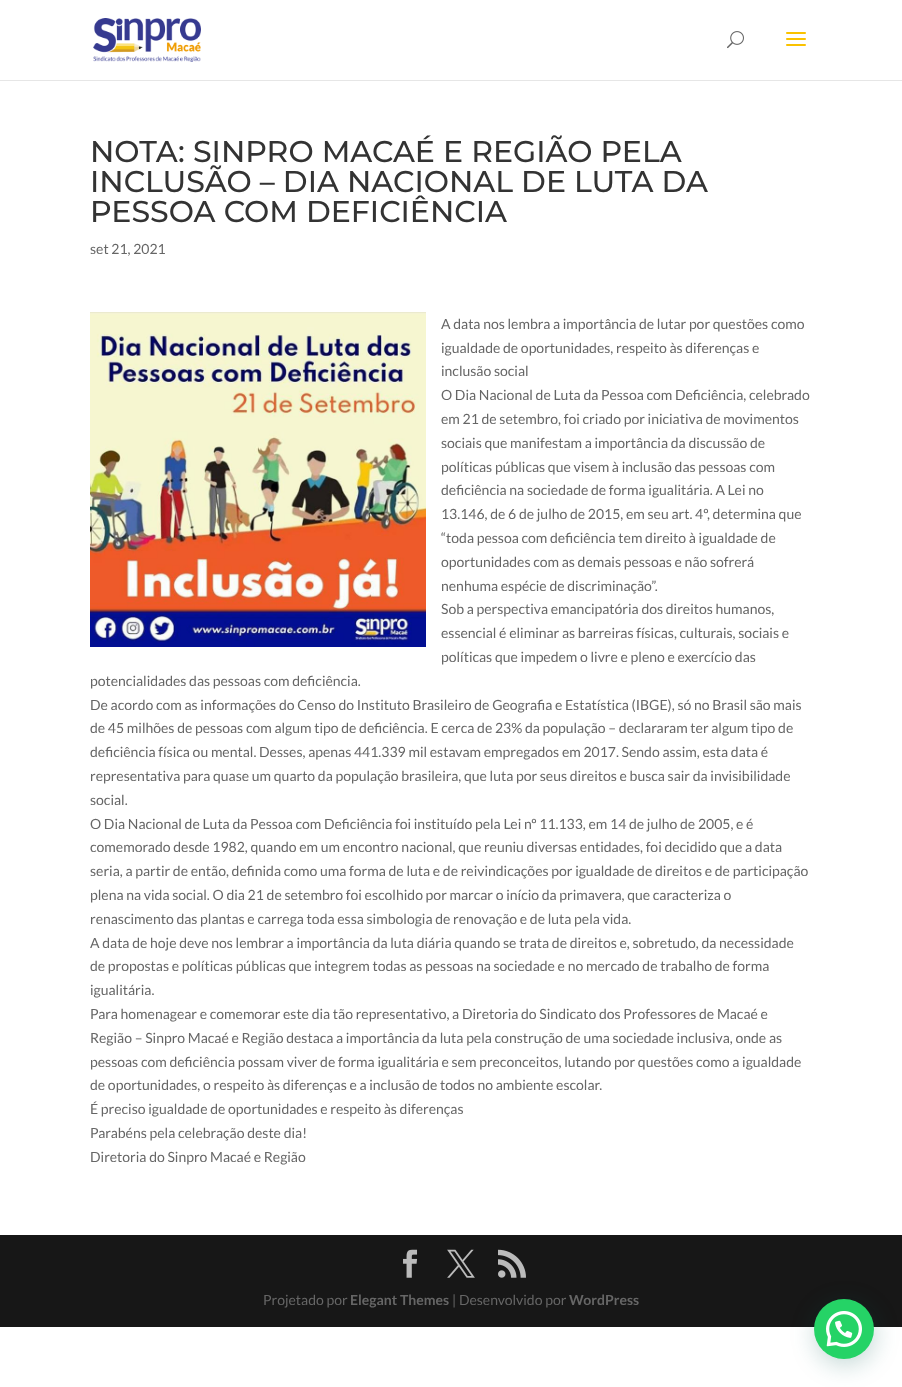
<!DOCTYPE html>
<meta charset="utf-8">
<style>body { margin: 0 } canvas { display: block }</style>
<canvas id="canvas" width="902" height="1387"></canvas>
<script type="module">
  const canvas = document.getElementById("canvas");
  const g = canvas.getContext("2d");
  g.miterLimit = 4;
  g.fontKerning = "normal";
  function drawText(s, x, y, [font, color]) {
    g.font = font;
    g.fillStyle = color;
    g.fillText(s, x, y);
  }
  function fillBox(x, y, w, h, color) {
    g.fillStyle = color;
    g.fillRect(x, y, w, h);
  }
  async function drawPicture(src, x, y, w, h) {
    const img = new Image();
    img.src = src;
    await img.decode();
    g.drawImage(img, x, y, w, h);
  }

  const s1 = ["500 30px Montserrat", "#333333"];
  const s2 = ["14px Lato", "#666666"];
  const s3 = ["bold 14px Lato", "#666666"];

  fillBox(0, 0, 902, 1387, "#FFFFFF");
  fillBox(0, 80, 902, 1, "#E6E6E6");
  await drawPicture("pic1.png", 93, 18, 108, 44);
  await drawPicture("pic2.png", 727, 31, 17, 18);
  await drawPicture("pic3.png", 786, 32, 20, 14);
  drawText("NOTA: SINPRO MACAÉ E REGIÃO PELA", 90, 162, s1);
  drawText("INCLUSÃO – DIA NACIONAL DE LUTA DA", 90, 192, s1);
  drawText("PESSOA COM DEFICIÊNCIA", 90, 222, s1);
  drawText("set 21, 2021", 90, 254, s2);
  await drawPicture("pic4.png", 90, 312, 336, 335);
  drawText("A data nos lembra a importância de lutar por questões como", 441, 329, s2);
  drawText("igualdade de oportunidades, respeito às diferenças e", 441, 353, s2);
  drawText("inclusão social", 441, 376, s2);
  drawText("O Dia Nacional de Luta da Pessoa com Deficiência, celebrado", 441, 400, s2);
  drawText("em 21 de setembro, foi criado por iniciativa de movimentos", 441, 424, s2);
  drawText("sociais que manifestam a importância da discussão de", 441, 448, s2);
  drawText("políticas públicas que visem à inclusão das pessoas com", 441, 472, s2);
  drawText("deficiência na sociedade de forma igualitária. A Lei no", 441, 495, s2);
  drawText("13.146, de 6 de julho de 2015, em seu art. 4º, determina que", 441, 519, s2);
  drawText("“toda pessoa com deficiência tem direito à igualdade de", 441, 543, s2);
  drawText("oportunidades com as demais pessoas e não sofrerá", 441, 567, s2);
  drawText("nenhuma espécie de discriminação”.", 441, 591, s2);
  drawText("Sob a perspectiva emancipatória dos direitos humanos,", 441, 614, s2);
  drawText("essencial é eliminar as barreiras físicas, culturais, sociais e", 441, 638, s2);
  drawText("políticas que impedem o livre e pleno e exercício das", 441, 662, s2);
  drawText("potencialidades das pessoas com deficiência.", 90, 686, s2);
  drawText("De acordo com as informações do Censo do Instituto Brasileiro de Geografia e Estatística (IBGE), só no Brasil são mais", 90, 710, s2);
  drawText("de 45 milhões de pessoas com algum tipo de deficiência. E cerca de 23% da população – declararam ter algum tipo de", 90, 733, s2);
  drawText("deficiência física ou mental. Desses, apenas 441.339 mil estavam empregados em 2017. Sendo assim, esta data é", 90, 757, s2);
  drawText("representativa para quase um quarto da população brasileira, que luta por seus direitos e busca sair da invisibilidade", 90, 781, s2);
  drawText("social.", 90, 805, s2);
  drawText("O Dia Nacional de Luta da Pessoa com Deficiência foi instituído pela Lei nº 11.133, em 14 de julho de 2005, e é", 90, 829, s2);
  drawText("comemorado desde 1982, quando em um encontro nacional, que reuniu diversas entidades, foi decidido que a data", 90, 852, s2);
  drawText("seria, a partir de então, definida como uma forma de luta e de reivindicações por igualdade de direitos e de participação", 90, 876, s2);
  drawText("plena na vida social. O dia 21 de setembro foi escolhido por marcar o início da primavera, que caracteriza o", 90, 900, s2);
  drawText("renascimento das plantas e carrega toda essa simbologia de renovação e de luta pela vida.", 90, 924, s2);
  drawText("A data de hoje deve nos lembrar a importância da luta diária quando se trata de direitos e, sobretudo, da necessidade", 90, 948, s2);
  drawText("de propostas e políticas públicas que integrem todas as pessoas na sociedade e no mercado de trabalho de forma", 90, 971, s2);
  drawText("igualitária.", 90, 995, s2);
  drawText("Para homenagear e comemorar este dia tão representativo, a Diretoria do Sindicato dos Professores de Macaé e", 90, 1019, s2);
  drawText("Região – Sinpro Macaé e Região destaca a importância da luta pela construção de uma sociedade inclusiva, onde as", 90, 1043, s2);
  drawText("pessoas com deficiência possam viver de forma igualitária e sem preconceitos, lutando por questões como a igualdade", 90, 1067, s2);
  drawText("de oportunidades, o respeito às diferenças e a inclusão de todos no ambiente escolar.", 90, 1090, s2);
  drawText("É preciso igualdade de oportunidades e respeito às diferenças", 90, 1114, s2);
  drawText("Parabéns pela celebração deste dia!", 90, 1138, s2);
  drawText("Diretoria do Sinpro Macaé e Região", 90, 1162, s2);
  fillBox(0, 1235, 902, 92, "#171717");
  await drawPicture("pic5.png", 403, 1249, 15, 29);
  await drawPicture("pic6.png", 447, 1249, 28, 29);
  await drawPicture("pic7.png", 498, 1249, 28, 29);
  drawText("Projetado por", 263, 1305, s2);
  drawText("Elegant Themes", 350, 1305, s3);
  drawText("| Desenvolvido por", 452, 1305, s2);
  drawText("WordPress", 569, 1305, s3);
  g.fillStyle = "rgba(7, 94, 84, 0.24)";
  g.filter = "blur(12px)";
  g.beginPath();
  g.roundRect(815, 1305, 60, 60, 30);
  g.fill();
  g.filter = "none";
  g.fillStyle = "#25D366";
  g.beginPath();
  g.arc(844, 1329, 30, 0, Math.PI * 2);
  g.fill();
  await drawPicture("pic8.png", 826, 1311, 36, 36);
</script>
